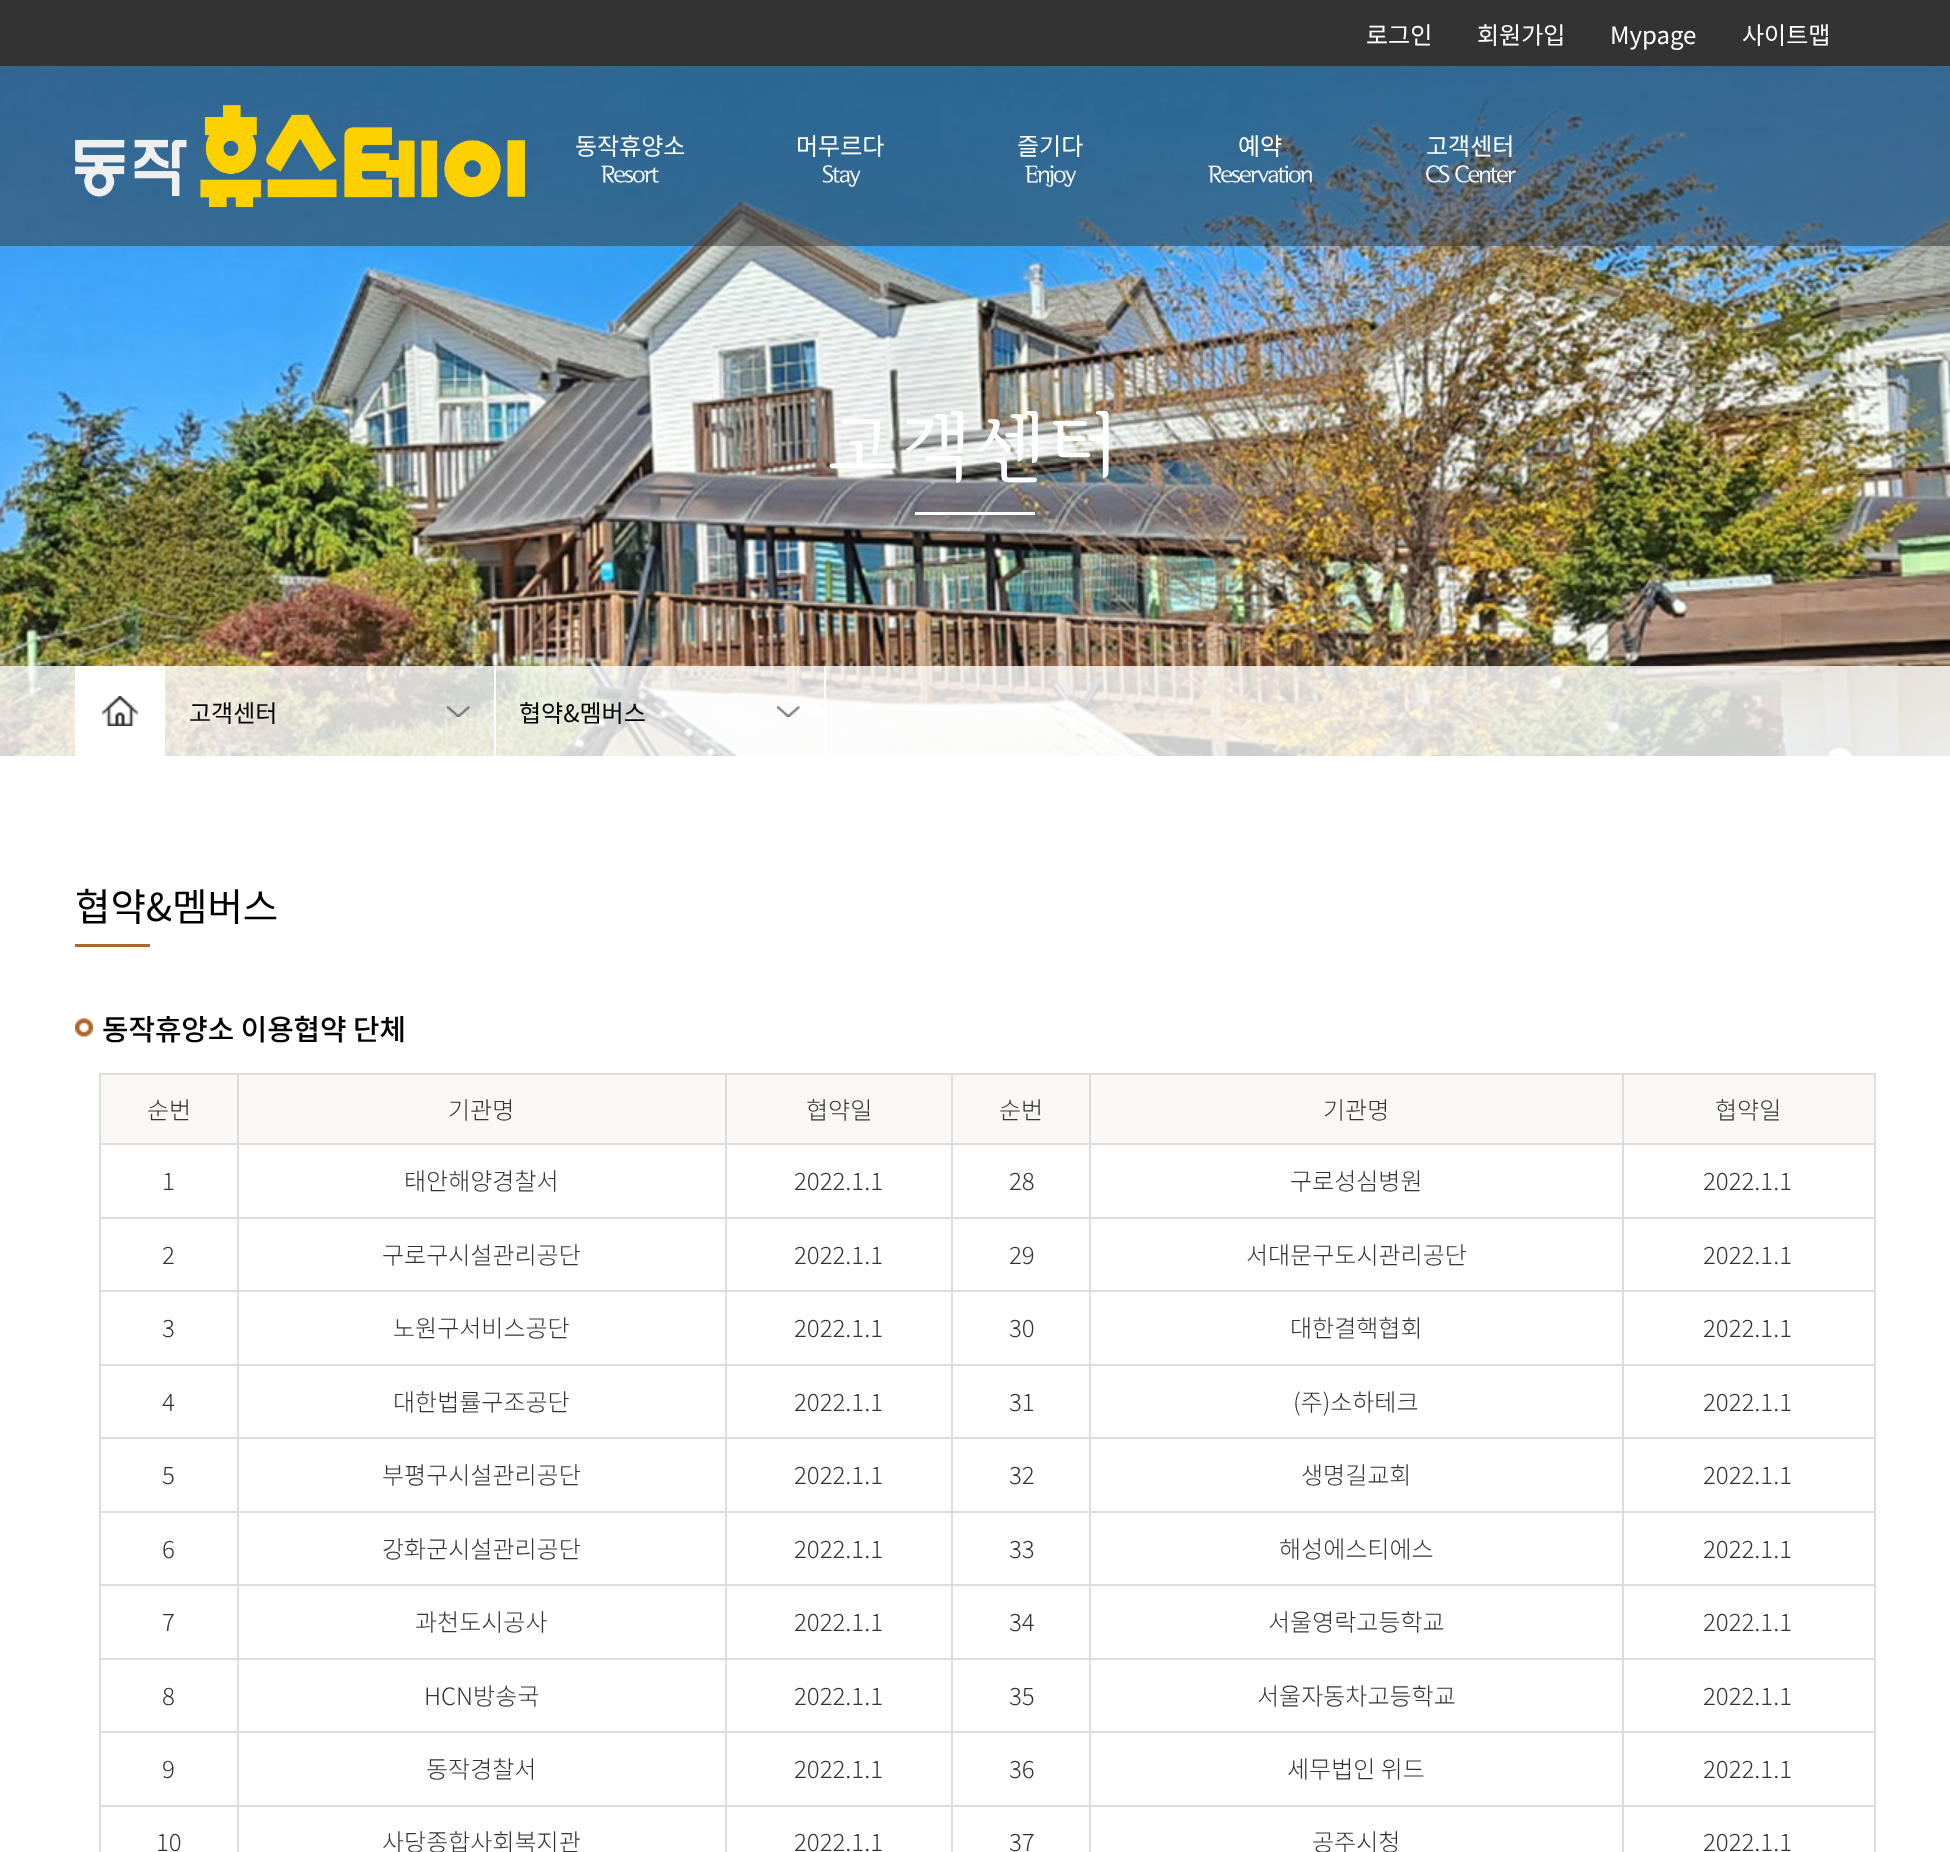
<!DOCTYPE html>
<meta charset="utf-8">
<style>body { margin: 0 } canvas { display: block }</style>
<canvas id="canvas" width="1950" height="1852"></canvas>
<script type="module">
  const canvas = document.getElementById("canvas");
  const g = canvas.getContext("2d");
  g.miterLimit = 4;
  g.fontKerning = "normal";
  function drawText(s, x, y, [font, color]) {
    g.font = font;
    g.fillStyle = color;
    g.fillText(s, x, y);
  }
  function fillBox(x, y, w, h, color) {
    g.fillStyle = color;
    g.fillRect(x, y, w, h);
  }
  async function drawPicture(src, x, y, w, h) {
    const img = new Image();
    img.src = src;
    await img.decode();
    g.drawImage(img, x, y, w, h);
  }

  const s1 = ["24px Noto Sans KR", "#FFFFFF"];
  const s2 = ["24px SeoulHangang", "#FFFFFF"];
  const s3 = ["77px SeoulHangang", "#FFFFFF"];
  const s4 = ["24px Noto Sans KR", "#000000"];
  const s5 = ["38.5px Noto Sans KR", "#000000"];
  const s6 = ["500 28.75px Noto Sans KR", "#000000"];
  const s7 = ["300 24px Noto Sans KR", "#333333"];

  fillBox(0, 0, 1950, 1852, "#FFFFFF");
  fillBox(0, 0, 1950, 66, "#333333");
  drawText("로그인", 1366, 44, s1);
  drawText("회원가입", 1477, 44, s1);
  drawText("Mypage", 1610, 44, s1);
  drawText("사이트맵", 1742, 44, s1);
  await drawPicture("pic2.png", 0, 66, 1950, 690);
  fillBox(0, 66, 1950, 180, "rgba(51, 51, 51, 0.5)");
  await drawPicture("pic1.png", 75, 105, 450, 102);
  drawText("동작휴양소", 575, 155, s1);
  g.letterSpacing = "-2px";
  drawText("Resort", 601, 182, s2);
  g.letterSpacing = "0px";
  drawText("머무르다", 796, 155, s1);
  g.letterSpacing = "-2px";
  drawText("Stay", 822, 182, s2);
  g.letterSpacing = "0px";
  drawText("즐기다", 1017, 155, s1);
  g.letterSpacing = "-2px";
  drawText("Enjoy", 1025, 182, s2);
  g.letterSpacing = "0px";
  drawText("예약", 1238, 155, s1);
  g.letterSpacing = "-2px";
  drawText("Reservation", 1208, 182, s2);
  g.letterSpacing = "0px";
  drawText("고객센터", 1426, 155, s1);
  g.letterSpacing = "-2px";
  drawText("CS Center", 1425, 182, s2);
  g.letterSpacing = "6px";
  drawText("고객센터", 827, 470, s3);
  fillBox(915, 512, 120, 3, "#FFFFFF");
  fillBox(0, 666, 1950, 90, "rgba(255, 255, 255, 0.8)");
  fillBox(75, 666, 90, 90, "#FFFFFF");
  await drawPicture("pic3.png", 102, 696, 36, 30);
  fillBox(494, 666, 2, 90, "#FFFFFF");
  await drawPicture("pic4.png", 447, 706, 23, 11);
  g.letterSpacing = "0px";
  drawText("고객센터", 189, 722, s4);
  fillBox(824, 666, 2, 90, "#FFFFFF");
  await drawPicture("pic5.png", 777, 706, 23, 11);
  drawText("협약&멤버스", 519, 722, s4);
  drawText("협약&멤버스", 75, 921, s5);
  fillBox(75, 944, 75, 3, "#AC662B");
  await drawPicture("pic6.png", 75, 1018, 18, 19);
  drawText("동작휴양소 이용협약 단체", 102, 1040, s6);
  fillBox(101, 1075, 136, 68, "#FBF7F4");
  fillBox(1622, 1073, 253, 2, "#DDDDDD");
  fillBox(1622, 1143, 253, 2, "#DDDDDD");
  fillBox(1622, 1217, 253, 2, "#DDDDDD");
  fillBox(1622, 1290, 253, 2, "#DDDDDD");
  fillBox(1622, 1364, 253, 2, "#DDDDDD");
  fillBox(1622, 1437, 253, 2, "#DDDDDD");
  fillBox(1622, 1511, 253, 2, "#DDDDDD");
  fillBox(1622, 1584, 253, 2, "#DDDDDD");
  fillBox(1622, 1658, 253, 2, "#DDDDDD");
  fillBox(1622, 1731, 253, 2, "#DDDDDD");
  fillBox(1622, 1805, 253, 2, "#DDDDDD");
  fillBox(1622, 1805, 2, 47, "#DDDDDD");
  fillBox(1089, 1805, 534, 2, "#DDDDDD");
  fillBox(1622, 1731, 2, 75, "#DDDDDD");
  fillBox(1089, 1731, 534, 2, "#DDDDDD");
  fillBox(1622, 1658, 2, 75, "#DDDDDD");
  fillBox(1089, 1658, 534, 2, "#DDDDDD");
  fillBox(1622, 1584, 2, 75, "#DDDDDD");
  fillBox(1089, 1584, 534, 2, "#DDDDDD");
  fillBox(1622, 1511, 2, 75, "#DDDDDD");
  fillBox(1089, 1511, 534, 2, "#DDDDDD");
  fillBox(1622, 1437, 2, 75, "#DDDDDD");
  fillBox(1089, 1437, 534, 2, "#DDDDDD");
  fillBox(1622, 1364, 2, 75, "#DDDDDD");
  fillBox(1089, 1364, 534, 2, "#DDDDDD");
  fillBox(1622, 1290, 2, 75, "#DDDDDD");
  fillBox(1089, 1290, 534, 2, "#DDDDDD");
  fillBox(1622, 1217, 2, 75, "#DDDDDD");
  fillBox(1089, 1217, 534, 2, "#DDDDDD");
  fillBox(1622, 1143, 2, 75, "#DDDDDD");
  fillBox(1089, 1143, 534, 2, "#DDDDDD");
  fillBox(1622, 1073, 2, 72, "#DDDDDD");
  fillBox(1089, 1073, 534, 2, "#DDDDDD");
  fillBox(1089, 1805, 2, 47, "#DDDDDD");
  fillBox(951, 1805, 140, 2, "#DDDDDD");
  fillBox(1089, 1731, 2, 75, "#DDDDDD");
  fillBox(951, 1731, 140, 2, "#DDDDDD");
  fillBox(1089, 1658, 2, 75, "#DDDDDD");
  fillBox(951, 1658, 140, 2, "#DDDDDD");
  fillBox(1089, 1584, 2, 75, "#DDDDDD");
  fillBox(951, 1584, 140, 2, "#DDDDDD");
  fillBox(1089, 1511, 2, 75, "#DDDDDD");
  fillBox(951, 1511, 140, 2, "#DDDDDD");
  fillBox(1089, 1437, 2, 75, "#DDDDDD");
  fillBox(951, 1437, 140, 2, "#DDDDDD");
  fillBox(1089, 1364, 2, 75, "#DDDDDD");
  fillBox(951, 1364, 140, 2, "#DDDDDD");
  fillBox(1089, 1290, 2, 75, "#DDDDDD");
  fillBox(951, 1290, 140, 2, "#DDDDDD");
  fillBox(1089, 1217, 2, 75, "#DDDDDD");
  fillBox(951, 1217, 140, 2, "#DDDDDD");
  fillBox(1089, 1143, 2, 75, "#DDDDDD");
  fillBox(951, 1143, 140, 2, "#DDDDDD");
  fillBox(1089, 1073, 2, 72, "#DDDDDD");
  fillBox(951, 1073, 140, 2, "#DDDDDD");
  fillBox(951, 1805, 2, 47, "#DDDDDD");
  fillBox(725, 1805, 228, 2, "#DDDDDD");
  fillBox(951, 1731, 2, 75, "#DDDDDD");
  fillBox(725, 1731, 228, 2, "#DDDDDD");
  fillBox(951, 1658, 2, 75, "#DDDDDD");
  fillBox(725, 1658, 228, 2, "#DDDDDD");
  fillBox(951, 1584, 2, 75, "#DDDDDD");
  fillBox(725, 1584, 228, 2, "#DDDDDD");
  fillBox(951, 1511, 2, 75, "#DDDDDD");
  fillBox(725, 1511, 228, 2, "#DDDDDD");
  fillBox(951, 1437, 2, 75, "#DDDDDD");
  fillBox(725, 1437, 228, 2, "#DDDDDD");
  fillBox(951, 1364, 2, 75, "#DDDDDD");
  fillBox(725, 1364, 228, 2, "#DDDDDD");
  fillBox(951, 1290, 2, 75, "#DDDDDD");
  fillBox(725, 1290, 228, 2, "#DDDDDD");
  fillBox(951, 1217, 2, 75, "#DDDDDD");
  fillBox(725, 1217, 228, 2, "#DDDDDD");
  fillBox(951, 1143, 2, 75, "#DDDDDD");
  fillBox(725, 1143, 228, 2, "#DDDDDD");
  fillBox(951, 1073, 2, 72, "#DDDDDD");
  fillBox(725, 1073, 228, 2, "#DDDDDD");
  fillBox(725, 1805, 2, 47, "#DDDDDD");
  fillBox(237, 1805, 489, 2, "#DDDDDD");
  fillBox(725, 1731, 2, 75, "#DDDDDD");
  fillBox(237, 1731, 489, 2, "#DDDDDD");
  fillBox(725, 1658, 2, 75, "#DDDDDD");
  fillBox(237, 1658, 489, 2, "#DDDDDD");
  fillBox(725, 1584, 2, 75, "#DDDDDD");
  fillBox(237, 1584, 489, 2, "#DDDDDD");
  fillBox(725, 1511, 2, 75, "#DDDDDD");
  fillBox(237, 1511, 489, 2, "#DDDDDD");
  fillBox(725, 1437, 2, 75, "#DDDDDD");
  fillBox(237, 1437, 489, 2, "#DDDDDD");
  fillBox(725, 1364, 2, 75, "#DDDDDD");
  fillBox(237, 1364, 489, 2, "#DDDDDD");
  fillBox(725, 1290, 2, 75, "#DDDDDD");
  fillBox(237, 1290, 489, 2, "#DDDDDD");
  fillBox(725, 1217, 2, 75, "#DDDDDD");
  fillBox(237, 1217, 489, 2, "#DDDDDD");
  fillBox(725, 1143, 2, 75, "#DDDDDD");
  fillBox(237, 1143, 489, 2, "#DDDDDD");
  fillBox(725, 1073, 2, 72, "#DDDDDD");
  fillBox(237, 1073, 489, 2, "#DDDDDD");
  fillBox(237, 1805, 2, 47, "#DDDDDD");
  fillBox(99, 1805, 140, 2, "#DDDDDD");
  fillBox(237, 1731, 2, 75, "#DDDDDD");
  fillBox(99, 1731, 140, 2, "#DDDDDD");
  fillBox(237, 1658, 2, 75, "#DDDDDD");
  fillBox(99, 1658, 140, 2, "#DDDDDD");
  fillBox(237, 1584, 2, 75, "#DDDDDD");
  fillBox(99, 1584, 140, 2, "#DDDDDD");
  fillBox(237, 1511, 2, 75, "#DDDDDD");
  fillBox(99, 1511, 140, 2, "#DDDDDD");
  fillBox(237, 1437, 2, 75, "#DDDDDD");
  fillBox(99, 1437, 140, 2, "#DDDDDD");
  fillBox(237, 1364, 2, 75, "#DDDDDD");
  fillBox(99, 1364, 140, 2, "#DDDDDD");
  fillBox(237, 1290, 2, 75, "#DDDDDD");
  fillBox(99, 1290, 140, 2, "#DDDDDD");
  fillBox(237, 1217, 2, 75, "#DDDDDD");
  fillBox(99, 1217, 140, 2, "#DDDDDD");
  fillBox(237, 1143, 2, 75, "#DDDDDD");
  fillBox(99, 1143, 140, 2, "#DDDDDD");
  fillBox(237, 1073, 2, 72, "#DDDDDD");
  fillBox(99, 1073, 140, 2, "#DDDDDD");
  fillBox(99, 1805, 2, 47, "#DDDDDD");
  fillBox(99, 1731, 2, 75, "#DDDDDD");
  fillBox(99, 1658, 2, 75, "#DDDDDD");
  fillBox(99, 1584, 2, 75, "#DDDDDD");
  fillBox(99, 1511, 2, 75, "#DDDDDD");
  fillBox(99, 1437, 2, 75, "#DDDDDD");
  fillBox(99, 1364, 2, 75, "#DDDDDD");
  fillBox(99, 1290, 2, 75, "#DDDDDD");
  fillBox(99, 1217, 2, 75, "#DDDDDD");
  fillBox(99, 1143, 2, 75, "#DDDDDD");
  fillBox(99, 1073, 2, 72, "#DDDDDD");
  drawText("순번", 147, 1119, s7);
  fillBox(239, 1075, 486, 68, "#FBF7F4");
  drawText("기관명", 448, 1119, s7);
  fillBox(727, 1075, 224, 68, "#FBF7F4");
  drawText("협약일", 806, 1119, s7);
  fillBox(953, 1075, 136, 68, "#FBF7F4");
  drawText("순번", 999, 1119, s7);
  fillBox(1091, 1075, 531, 68, "#FBF7F4");
  drawText("기관명", 1323, 1119, s7);
  fillBox(1624, 1075, 250, 68, "#FBF7F4");
  fillBox(1874, 1805, 2, 47, "#DDDDDD");
  fillBox(1874, 1731, 2, 75, "#DDDDDD");
  fillBox(1874, 1658, 2, 75, "#DDDDDD");
  fillBox(1874, 1584, 2, 75, "#DDDDDD");
  fillBox(1874, 1511, 2, 75, "#DDDDDD");
  fillBox(1874, 1437, 2, 75, "#DDDDDD");
  fillBox(1874, 1364, 2, 75, "#DDDDDD");
  fillBox(1874, 1290, 2, 75, "#DDDDDD");
  fillBox(1874, 1217, 2, 75, "#DDDDDD");
  fillBox(1874, 1143, 2, 75, "#DDDDDD");
  fillBox(1874, 1073, 2, 72, "#DDDDDD");
  drawText("협약일", 1715, 1119, s7);
  drawText("1", 162, 1190, s7);
  drawText("태안해양경찰서", 404, 1190, s7);
  drawText("2022.1.1", 794, 1190, s7);
  drawText("28", 1009, 1190, s7);
  drawText("구로성심병원", 1290, 1190, s7);
  drawText("2022.1.1", 1703, 1190, s7);
  drawText("2", 162, 1264, s7);
  drawText("구로구시설관리공단", 382, 1264, s7);
  drawText("2022.1.1", 794, 1264, s7);
  drawText("29", 1009, 1264, s7);
  drawText("서대문구도시관리공단", 1246, 1264, s7);
  drawText("2022.1.1", 1703, 1264, s7);
  drawText("3", 162, 1337, s7);
  drawText("노원구서비스공단", 393, 1337, s7);
  drawText("2022.1.1", 794, 1337, s7);
  drawText("30", 1009, 1337, s7);
  drawText("대한결핵협회", 1290, 1337, s7);
  drawText("2022.1.1", 1703, 1337, s7);
  drawText("4", 162, 1411, s7);
  drawText("대한법률구조공단", 393, 1411, s7);
  drawText("2022.1.1", 794, 1411, s7);
  drawText("31", 1009, 1411, s7);
  drawText("(주)소하테크", 1293, 1411, s7);
  drawText("2022.1.1", 1703, 1411, s7);
  drawText("5", 162, 1484, s7);
  drawText("부평구시설관리공단", 382, 1484, s7);
  drawText("2022.1.1", 794, 1484, s7);
  drawText("32", 1009, 1484, s7);
  drawText("생명길교회", 1301, 1484, s7);
  drawText("2022.1.1", 1703, 1484, s7);
  drawText("6", 162, 1558, s7);
  drawText("강화군시설관리공단", 382, 1558, s7);
  drawText("2022.1.1", 794, 1558, s7);
  drawText("33", 1009, 1558, s7);
  drawText("해성에스티에스", 1279, 1558, s7);
  drawText("2022.1.1", 1703, 1558, s7);
  drawText("7", 162, 1631, s7);
  drawText("과천도시공사", 415, 1631, s7);
  drawText("2022.1.1", 794, 1631, s7);
  drawText("34", 1009, 1631, s7);
  drawText("서울영락고등학교", 1268, 1631, s7);
  drawText("2022.1.1", 1703, 1631, s7);
  drawText("8", 162, 1705, s7);
  drawText("HCN방송국", 424, 1705, s7);
  drawText("2022.1.1", 794, 1705, s7);
  drawText("35", 1009, 1705, s7);
  drawText("서울자동차고등학교", 1257, 1705, s7);
  drawText("2022.1.1", 1703, 1705, s7);
  drawText("9", 162, 1778, s7);
  drawText("동작경찰서", 426, 1778, s7);
  drawText("2022.1.1", 794, 1778, s7);
  drawText("36", 1009, 1778, s7);
  drawText("세무법인 위드", 1287, 1778, s7);
  drawText("2022.1.1", 1703, 1778, s7);
  drawText("10", 156, 1851, s7);
  drawText("사당종합사회복지관", 382, 1851, s7);
  drawText("2022.1.1", 794, 1851, s7);
  drawText("37", 1009, 1851, s7);
  drawText("공주시청", 1312, 1851, s7);
  drawText("2022.1.1", 1703, 1851, s7);
</script>
